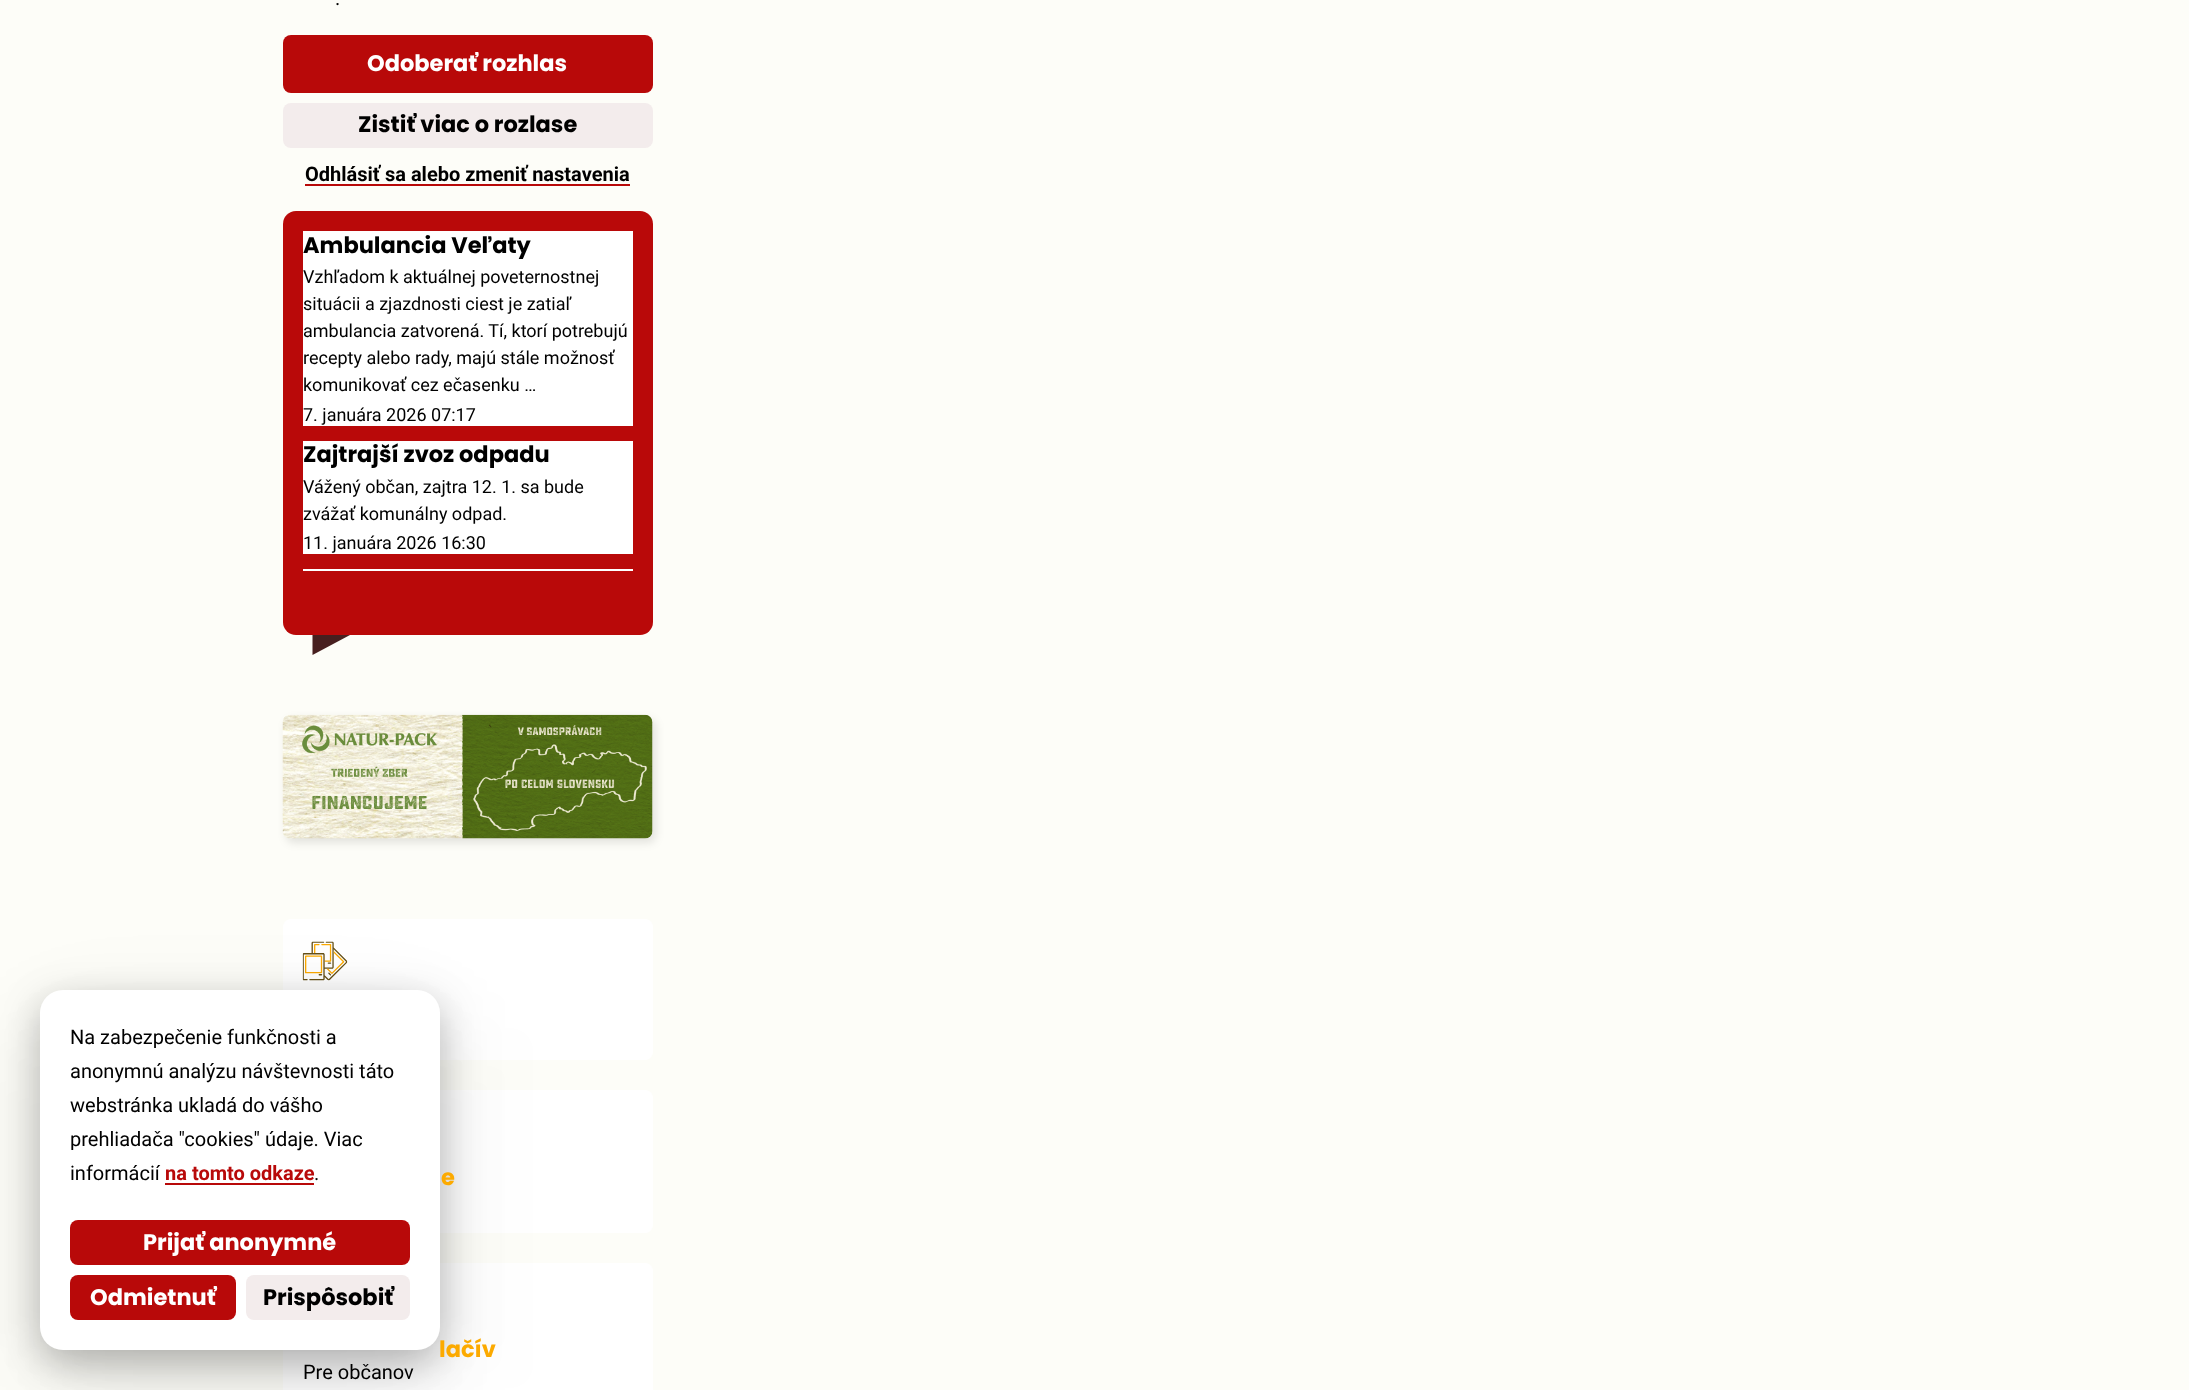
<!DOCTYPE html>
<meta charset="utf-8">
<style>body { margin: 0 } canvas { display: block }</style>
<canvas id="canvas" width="2189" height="1390"></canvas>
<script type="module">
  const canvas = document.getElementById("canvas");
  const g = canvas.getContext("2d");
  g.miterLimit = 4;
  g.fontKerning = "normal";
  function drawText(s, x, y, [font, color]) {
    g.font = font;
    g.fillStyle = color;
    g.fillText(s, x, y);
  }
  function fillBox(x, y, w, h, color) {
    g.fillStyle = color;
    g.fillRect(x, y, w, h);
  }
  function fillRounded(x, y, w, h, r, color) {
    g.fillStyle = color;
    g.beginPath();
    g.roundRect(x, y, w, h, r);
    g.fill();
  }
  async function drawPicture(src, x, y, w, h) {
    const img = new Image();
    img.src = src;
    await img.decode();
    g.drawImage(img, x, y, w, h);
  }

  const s1 = ["20px Roboto", "#000000"];
  const s2 = ["bold 20px Roboto", "#B80909"];
  const s3 = ["bold 22.5px Poppins", "#FFFFFF"];
  const s4 = ["bold 22.5px Poppins", "#000000"];
  const s5 = ["bold 20px Roboto", "#000000"];
  const s6 = ["18px Roboto", "#000000"];
  const s7 = ["bold 22.5px Poppins", "#FCAA00"];

  fillBox(0, 0, 2189, 1390, "#FDFDF8");
  fillRounded(283, 919, 370, 141, 8, "#FFFFFF");
  await drawPicture("pic2.png", 302, 941, 46, 40);
  fillRounded(283, 1090, 370, 143, 8, "#FFFFFF");
  fillRounded(283, 1263, 370, 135, 8, "#FFFFFF");
  g.fillStyle = "rgba(0, 0, 0, 0.05)";
  g.filter = "blur(56px)";
  g.beginPath();
  g.roundRect(40, 1028, 400, 360, 23);
  g.fill();
  g.filter = "none";
  g.filter = "blur(37.5px)";
  g.beginPath();
  g.roundRect(40, 1015, 400, 360, 23);
  g.fill();
  g.filter = "none";
  g.fillStyle = "rgba(0, 0, 0, 0.25)";
  g.filter = "blur(19px)";
  g.beginPath();
  g.roundRect(40, 1003, 400, 360, 23);
  g.fill();
  g.filter = "none";
  fillRounded(40, 990, 400, 360, 23, "#FFFFFF");
  drawText("Na zabezpečenie funkčnosti a", 70, 1044, s1);
  drawText("anonymnú analýzu návštevnosti táto", 70, 1078, s1);
  drawText("webstránka ukladá do vášho", 70, 1112, s1);
  drawText("prehliadača \"cookies\" údaje. Viac", 70, 1146, s1);
  drawText("informácií", 70, 1180, s1);
  drawText("na tomto odkaze", 165, 1180, s2);
  fillBox(165, 1183, 149, 2, "#B80909");
  drawText(".", 314, 1180, s1);
  fillRounded(70, 1220, 340, 45, 8, "#B80909");
  drawText("Prijať anonymné", 143, 1250, s3);
  fillRounded(70, 1275, 166, 45, 8, "#B80909");
  drawText("Odmietnuť", 90, 1305, s3);
  fillRounded(246, 1275, 164, 45, 8, "#F3ECEC");
  drawText("Prispôsobiť", 263, 1305, s4);
  drawText(".", 335, 5, s1);
  fillRounded(283, 35, 370, 58, 8, "#B80909");
  drawText("Odoberať rozhlas", 367, 71, s3);
  fillRounded(283, 103, 370, 45, 8, "#F3ECEC");
  drawText("Zistiť viac o rozlase", 358, 132, s4);
  drawText("Odhlásiť sa alebo zmeniť nastavenia", 305, 181, s5);
  fillBox(305, 184, 325, 2, "#B80909");
  fillRounded(283, 211, 370, 424, 13, "#B90909");
  fillBox(303, 231, 330, 195, "#FFFFFF");
  drawText("Ambulancia Veľaty", 303, 253, s4);
  drawText("Vzhľadom k aktuálnej poveternostnej", 303, 283, s6);
  drawText("situácii a zjazdnosti ciest je zatiaľ", 303, 310, s6);
  drawText("ambulancia zatvorená. Tí, ktorí potrebujú", 303, 337, s6);
  drawText("recepty alebo rady, majú stále možnosť", 303, 364, s6);
  drawText("komunikovať cez ečasenku …", 303, 391, s6);
  drawText("7. januára 2026 07:17", 303, 421, s6);
  fillBox(303, 441, 330, 113, "#FFFFFF");
  drawText("Zajtrajší zvoz odpadu", 303, 462, s4);
  drawText("Vážený občan, zajtra 12. 1. sa bude", 303, 493, s6);
  drawText("zvážať komunálny odpad.", 303, 520, s6);
  drawText("11. januára 2026 16:30", 303, 549, s6);
  fillBox(303, 569, 330, 2, "#FFFFFF");
  g.fillStyle = "#471F1F";
  g.beginPath();
  g.moveTo(312.5, 635);
  g.lineTo(350, 635);
  g.lineTo(312.5, 655);
  g.closePath();
  g.fill();
  g.fillStyle = "rgba(0, 0, 0, 0.1)";
  g.filter = "blur(4px)";
  g.beginPath();
  g.roundRect(286, 719, 370, 124, 8);
  g.fill();
  g.filter = "none";
  await drawPicture("pic1.png", 282, 714, 371, 125);
  drawText("e", 441, 1185, s7);
  drawText("lačív", 439, 1357, s7);
  drawText("Pre občanov", 303, 1379, s1);
</script>
